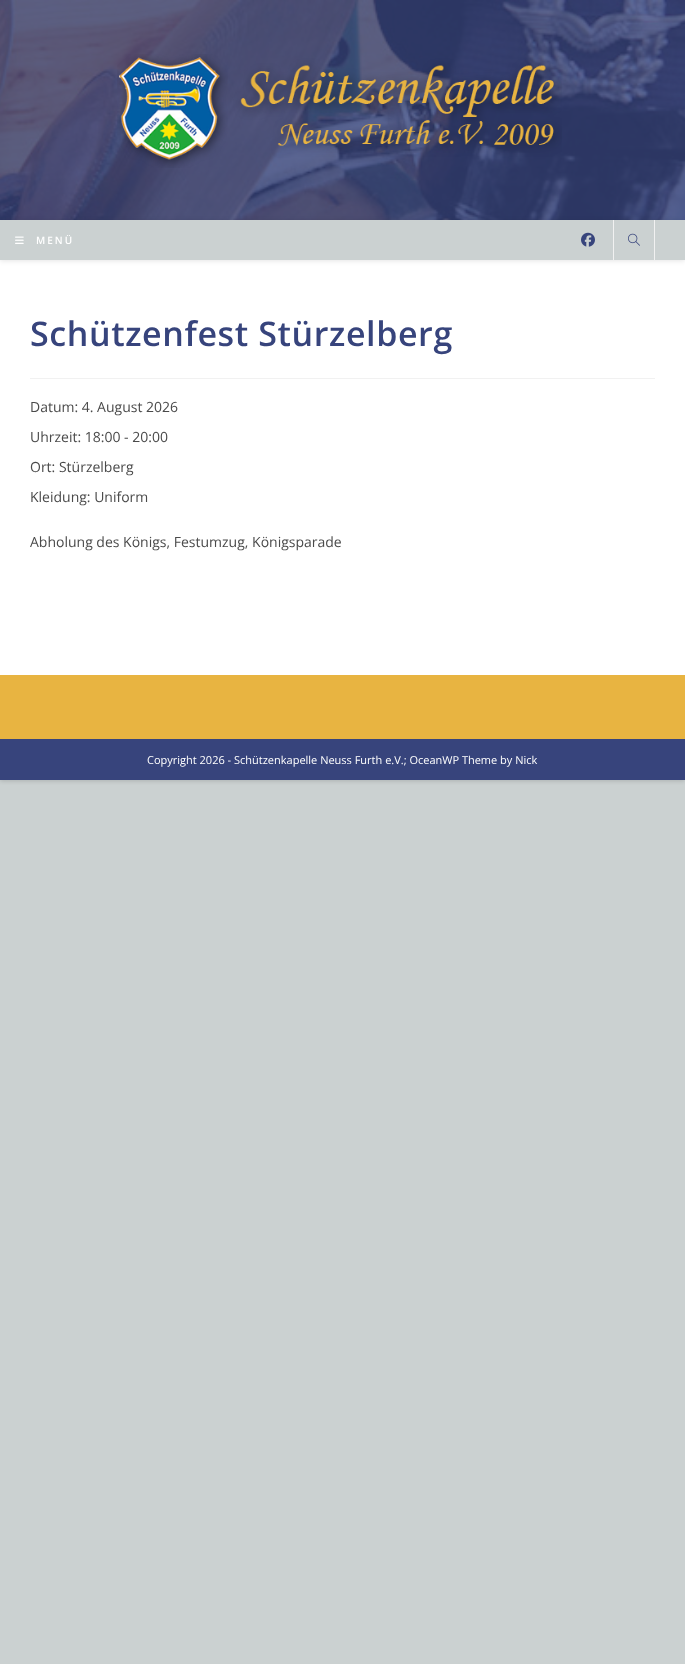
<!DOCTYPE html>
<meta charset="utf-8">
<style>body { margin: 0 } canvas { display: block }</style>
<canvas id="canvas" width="685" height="1664"></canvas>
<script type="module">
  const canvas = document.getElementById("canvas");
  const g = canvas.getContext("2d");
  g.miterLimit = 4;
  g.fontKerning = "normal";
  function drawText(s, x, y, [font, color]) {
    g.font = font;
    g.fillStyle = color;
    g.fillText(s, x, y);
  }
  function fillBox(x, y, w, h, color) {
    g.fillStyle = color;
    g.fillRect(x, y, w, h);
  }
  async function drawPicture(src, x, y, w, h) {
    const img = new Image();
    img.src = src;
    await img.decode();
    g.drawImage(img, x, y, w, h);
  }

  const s1 = ["600 10px Open Sans", "#FFFFFF"];
  const s2 = ["600 34px Open Sans", "#37447C"];
  const s3 = ["14px Open Sans", "#4A4A4A"];
  const s4 = ["11px Open Sans", "#FFFFFF"];

  fillBox(0, 0, 685, 1664, "#CBD1D1");
  g.fillStyle = "rgba(0, 0, 0, 0.15)";
  g.filter = "blur(2px)";
  g.beginPath();
  g.rect(0, 1, 685, 780);
  g.fill();
  g.filter = "none";
  fillBox(0, 260, 685, 415, "#FFFFFF");
  await drawPicture("pic1.png", 0, 0, 685, 220);
  await drawPicture("pic2.png", 117, 54, 445, 114);
  g.fillStyle = "rgba(0, 0, 0, 0.1)";
  g.filter = "blur(2.5px)";
  g.beginPath();
  g.rect(0, 221, 685, 40);
  g.fill();
  g.filter = "none";
  fillBox(0, 220, 685, 40, "#CBD1D1");
  await drawPicture("pic3.png", 15, 236, 9, 8);
  g.letterSpacing = "2px";
  drawText("MENÜ", 36, 244, s1);
  await drawPicture("pic4.png", 581, 232, 14, 15);
  fillBox(654, 220, 1, 40, "#F1F1F1");
  fillBox(613, 220, 1, 40, "#F1F1F1");
  await drawPicture("pic5.png", 628, 233, 12, 13);
  fillBox(30, 378, 625, 1, "#F1F1F1");
  g.letterSpacing = "0.6px";
  drawText("Schützenfest Stürzelberg", 30, 346, s2);
  g.letterSpacing = "0px";
  drawText("Datum: 4. August 2026", 30, 412, s3);
  drawText("Uhrzeit: 18:00 - 20:00", 30, 442, s3);
  drawText("Ort: Stürzelberg", 30, 472, s3);
  drawText("Kleidung: Uniform", 30, 502, s3);
  drawText("Abholung des Königs, Festumzug, Königsparade", 30, 547, s3);
  fillBox(0, 675, 685, 64, "#E8B441");
  fillBox(0, 739, 685, 41, "#37447C");
  drawText("Copyright 2026 - Schützenkapelle Neuss Furth e.V.; OceanWP Theme by Nick", 147, 764, s4);
</script>
